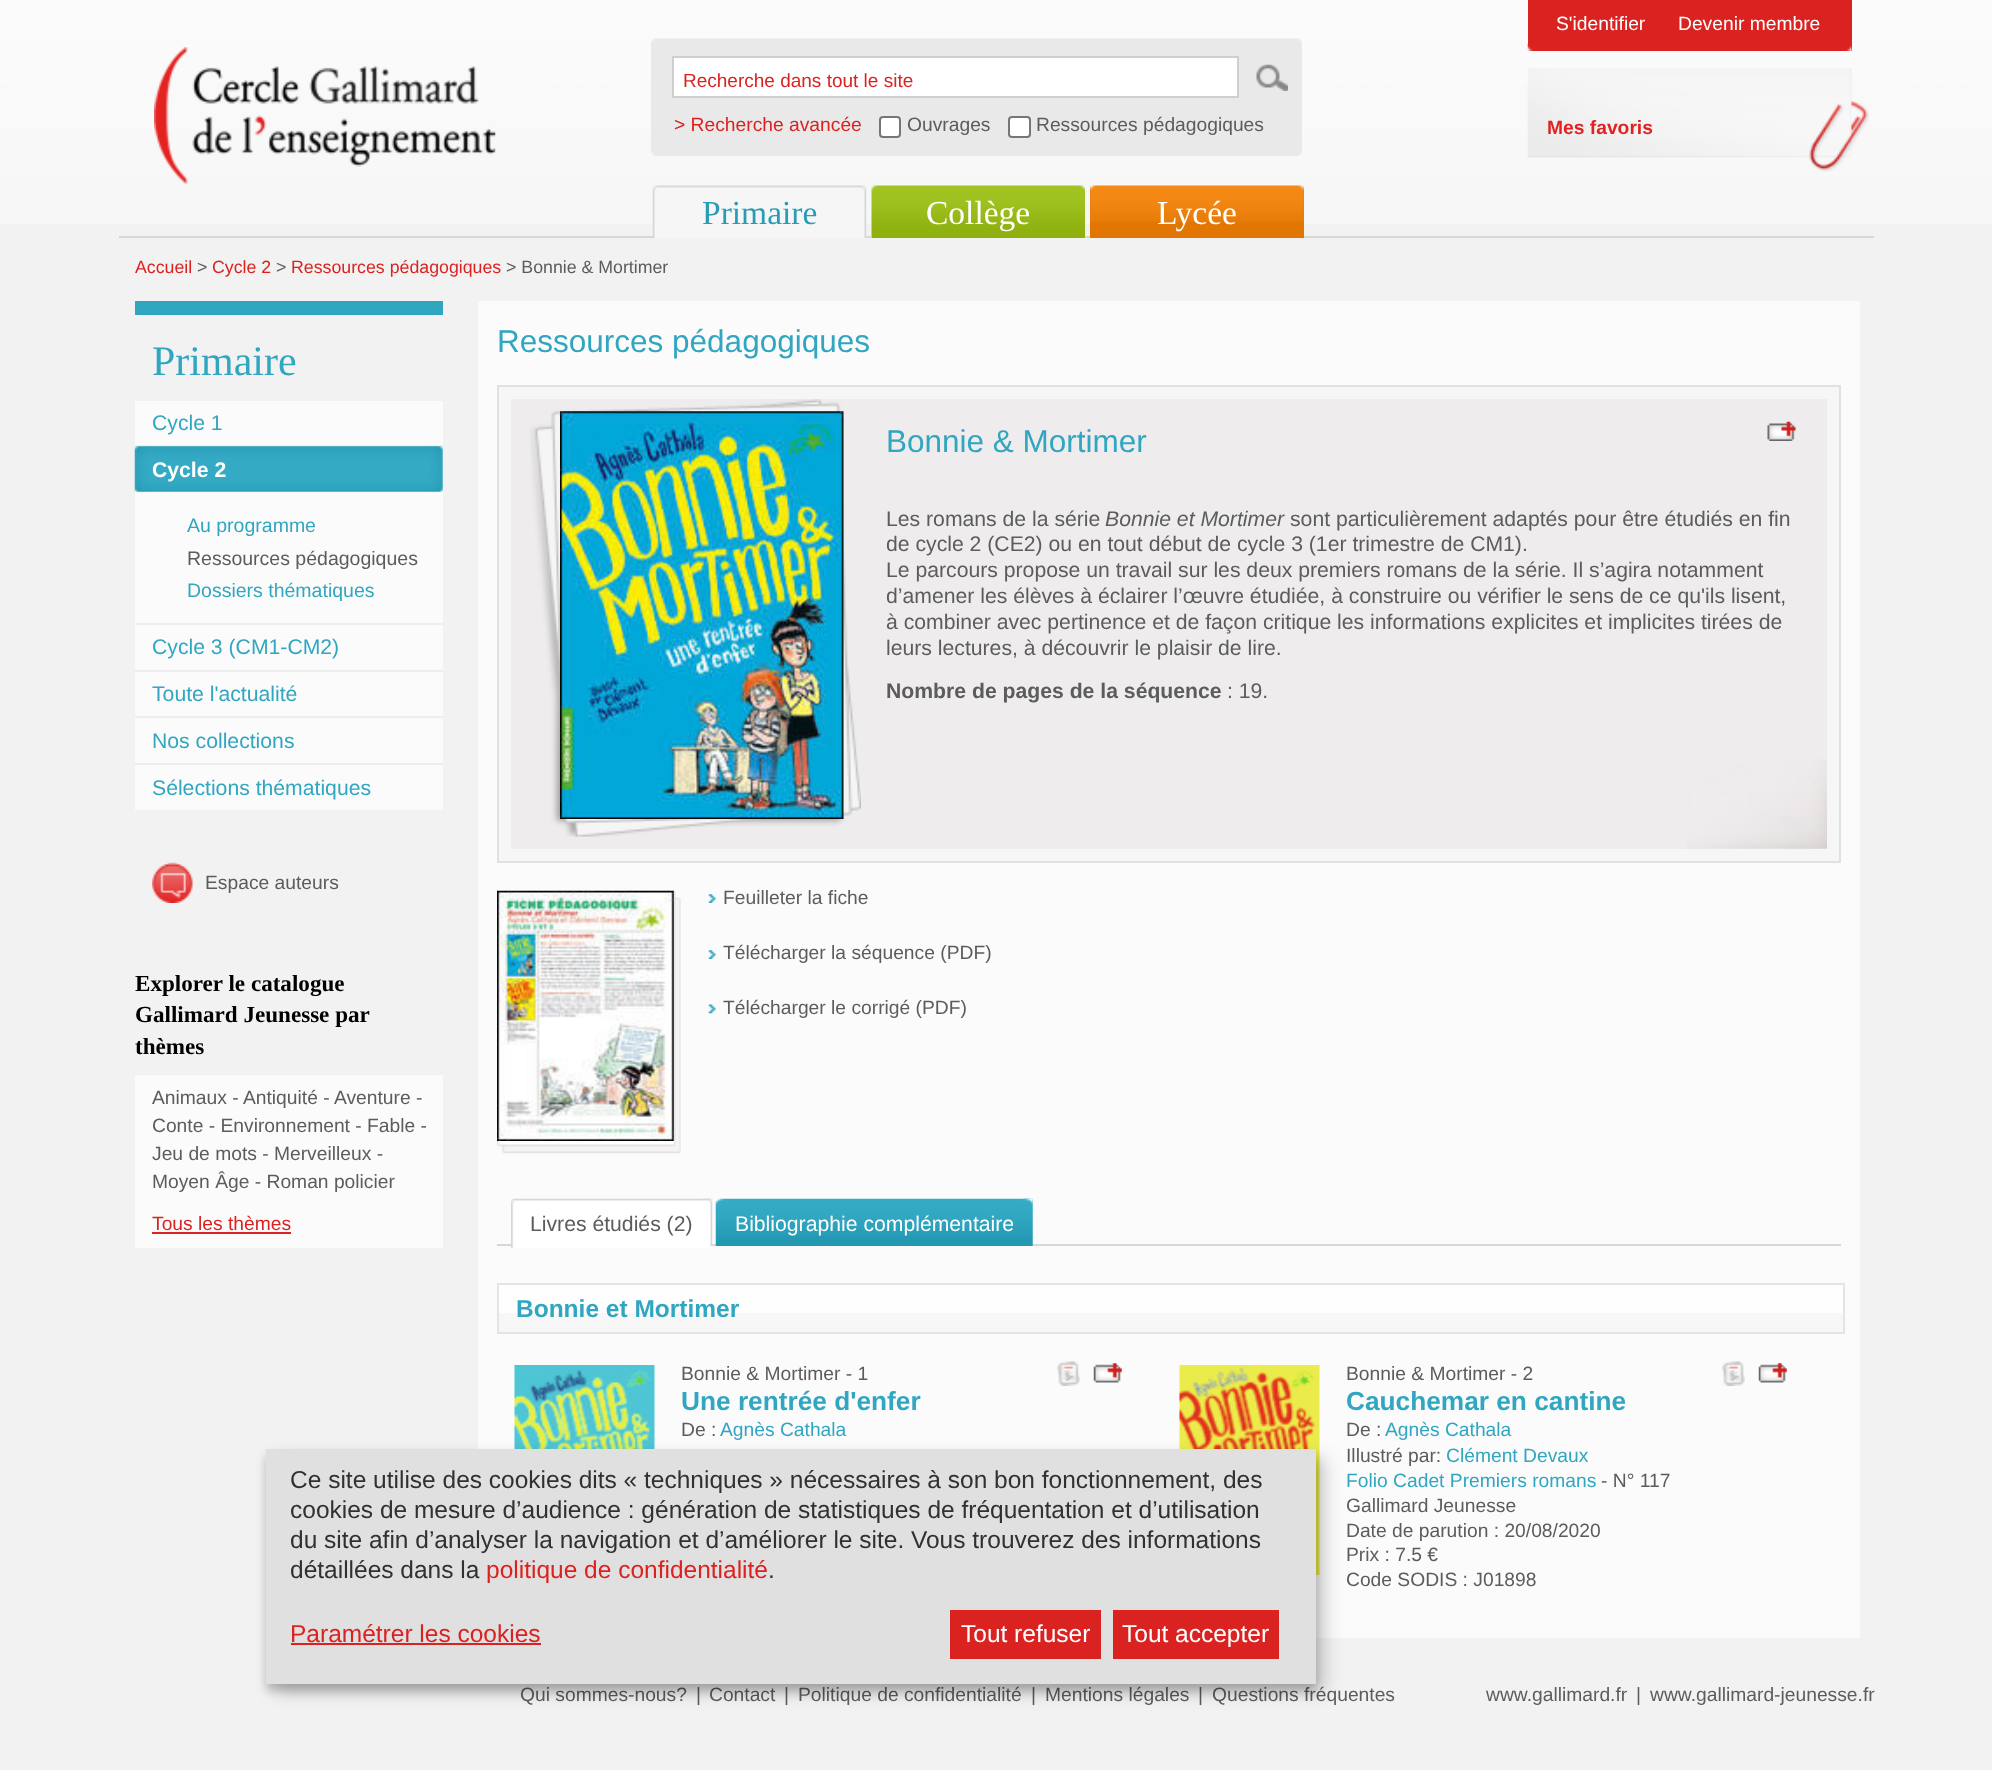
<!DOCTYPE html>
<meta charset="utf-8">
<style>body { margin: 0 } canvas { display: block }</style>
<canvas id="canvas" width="1992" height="1770"></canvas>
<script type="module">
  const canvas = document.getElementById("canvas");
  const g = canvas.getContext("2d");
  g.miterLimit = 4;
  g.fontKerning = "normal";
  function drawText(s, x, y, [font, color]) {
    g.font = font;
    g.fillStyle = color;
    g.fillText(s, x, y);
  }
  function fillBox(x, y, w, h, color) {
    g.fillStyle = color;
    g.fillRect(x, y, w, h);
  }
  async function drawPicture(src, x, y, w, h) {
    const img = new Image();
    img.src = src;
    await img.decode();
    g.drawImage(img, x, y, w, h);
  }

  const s1 = ["19px Liberation Sans", "#DA2321"];
  const s2 = ["19.25px Liberation Sans", "#DA2321"];
  const s3 = ["19.25px Liberation Sans", "#5C5C5C"];
  const s4 = ["19.25px Liberation Sans", "#FFFFFF"];
  const s5 = ["bold 19.25px Liberation Sans", "#E12221"];
  const s6 = ["33.5px Liberation Serif", "#279CB6"];
  const s7 = ["33.5px Liberation Serif", "#FFFFFF"];
  const s8 = ["17.75px Liberation Sans", "#DA2321"];
  const s9 = ["17.75px Liberation Sans", "#5C5C5C"];
  const s10 = ["42px Liberation Serif", "#31A6C0"];
  const s11 = ["21.2px Liberation Sans", "#31A6C0"];
  const s12 = ["bold 21.2px Liberation Sans", "#FFFFFF"];
  const s13 = ["19.5px Liberation Sans", "#31A6C0"];
  const s14 = ["19.5px Liberation Sans", "#5C5C5C"];
  const s15 = ["bold 23.1px Liberation Serif", "#000000"];
  const s16 = ["31.5px Liberation Sans", "#31A6C0"];
  const s17 = ["21.2px Liberation Sans", "#5C5C5C"];
  const s18 = ["italic 21.2px Liberation Sans", "#5C5C5C"];
  const s19 = ["bold 21.2px Liberation Sans", "#5C5C5C"];
  const s20 = ["21.2px Liberation Sans", "#FFFFFF"];
  const s21 = ["bold 24.5px Liberation Sans", "#31A6C0"];
  const s22 = ["bold 26.25px Liberation Sans", "#31A6C0"];
  const s23 = ["19.25px Liberation Sans", "#31A6C0"];
  const s24 = ["24.5px Liberation Sans", "#313131"];
  const s25 = ["24.5px Liberation Sans", "#DA2321"];
  const s26 = ["24.5px Liberation Sans", "#FFFFFF"];

  fillBox(0, 0, 1992, 1770, "#F2F2F2");
  await drawPicture("pic1.png", 0, 0, 1992, 224);
  await drawPicture("pic2.png", 154, 47, 342, 137);
  fillBox(651, 42, 651, 114, "#E9E9E9");
  await drawPicture("pic3.png", 651, 38, 651, 4);
  await drawPicture("pic4.png", 651, 152, 651, 4);
  g.fillStyle = "#FFFFFF";
  g.beginPath();
  g.rect(673, 57, 565, 40);
  g.fill();
  g.strokeStyle = "#CFCFCF";
  g.lineWidth = 2;
  g.stroke();
  drawText("Recherche dans tout le site", 683, 87, s1);
  await drawPicture("pic5.png", 1256, 64, 32, 27);
  drawText("> Recherche avancée", 674, 131, s2);
  g.fillStyle = "#FFFFFF";
  g.beginPath();
  g.roundRect(880, 117, 20, 20, 3);
  g.fill();
  g.strokeStyle = "#767676";
  g.stroke();
  drawText("Ouvrages", 907, 131, s3);
  g.fillStyle = "#FFFFFF";
  g.beginPath();
  g.roundRect(1009, 117, 21, 20, 3);
  g.fill();
  g.stroke();
  drawText("Ressources pédagogiques", 1036, 131, s3);
  fillBox(1528, 0, 324, 51, "#DA2321");
  await drawPicture("pic6.png", 1527, 43, 325, 8);
  drawText("S'identifier", 1556, 30, s4);
  drawText("Devenir membre", 1678, 30, s4);
  await drawPicture("pic7.png", 1527, 68, 342, 104);
  drawText("Mes favoris", 1547, 134, s5);
  fillBox(119, 236, 1755, 2, "#D7D7D7");
  await drawPicture("pic8.png", 652, 185, 215, 53);
  drawText("Primaire", 702, 224, s6);
  fillBox(872, 236, 213, 2, "#8FB10F");
  await drawPicture("pic9.png", 871, 185, 214, 52);
  drawText("Collège", 926, 224, s7);
  fillBox(1090, 186, 214, 52, "#E27602");
  await drawPicture("pic10.png", 1090, 185, 214, 37);
  drawText("Lycée", 1157, 224, s7);
  drawText("Accueil", 135, 273, s8);
  drawText(">", 197, 273, s9);
  drawText("Cycle 2", 212, 273, s8);
  drawText(">", 276, 273, s9);
  drawText("Ressources pédagogiques", 291, 273, s8);
  drawText("> Bonnie & Mortimer", 506, 273, s9);
  fillBox(135, 301, 308, 14, "#31A6C0");
  drawText("Primaire", 152, 375, s10);
  fillBox(135, 401, 308, 409, "#FBFBFB");
  drawText("Cycle 1", 152, 430, s11);
  fillBox(135, 445, 308, 2, "#EEEEEE");
  await drawPicture("pic11.png", 134, 446, 309, 46);
  drawText("Cycle 2", 152, 477, s12);
  drawText("Au programme", 187, 532, s13);
  drawText("Ressources pédagogiques", 187, 565, s14);
  drawText("Dossiers thématiques", 187, 597, s13);
  fillBox(135, 623, 308, 2, "#EEEEEE");
  drawText("Cycle 3 (CM1-CM2)", 152, 654, s11);
  fillBox(135, 670, 308, 2, "#EEEEEE");
  drawText("Toute l'actualité", 152, 701, s11);
  fillBox(135, 716, 308, 2, "#EEEEEE");
  drawText("Nos collections", 152, 748, s11);
  fillBox(135, 763, 308, 2, "#EEEEEE");
  drawText("Sélections thématiques", 152, 795, s11);
  await drawPicture("pic12.png", 152, 862, 41, 41);
  drawText("Espace auteurs", 205, 889, s3);
  drawText("Explorer le catalogue", 135, 991, s15);
  drawText("Gallimard Jeunesse par", 135, 1022, s15);
  drawText("thèmes", 135, 1054, s15);
  fillBox(135, 1075, 308, 173, "#FBFBFB");
  drawText("Animaux - Antiquité - Aventure -", 152, 1104, s3);
  drawText("Conte - Environnement - Fable -", 152, 1132, s3);
  drawText("Jeu de mots - Merveilleux -", 152, 1160, s3);
  drawText("Moyen Âge - Roman policier", 152, 1188, s3);
  drawText("Tous les thèmes", 152, 1230, s2);
  fillBox(152, 1232, 139, 2, "#DA2321");
  fillBox(478, 301, 1382, 1337, "#FBFBFB");
  drawText("Ressources pédagogiques", 497, 352, s16);
  g.fillStyle = "#F6F6F6";
  g.beginPath();
  g.rect(498, 386, 1342, 476);
  g.fill();
  g.strokeStyle = "#E1E1E1";
  g.stroke();
  fillBox(511, 399, 1316, 450, "#EEECEC");
  await drawPicture("pic13.png", 1687, 759, 140, 90);
  await drawPicture("pic14.png", 530, 399, 331, 438);
  await drawPicture("pic15.png", 560, 411, 284, 408);
  drawText("Bonnie & Mortimer", 886, 452, s16);
  await drawPicture("pic16.png", 1767, 421, 29, 20);
  drawText("Les romans de la série", 886, 526, s17);
  drawText("Bonnie et Mortimer", 1105, 526, s18);
  drawText("sont particulièrement adaptés pour être étudiés en fin", 1290, 526, s17);
  drawText("de cycle 2 (CE2) ou en tout début de cycle 3 (1er trimestre de CM1).", 886, 551, s17);
  drawText("Le parcours propose un travail sur les deux premiers romans de la série. Il s’agira notamment", 886, 577, s17);
  drawText("d’amener les élèves à éclairer l’œuvre étudiée, à construire ou vérifier le sens de ce qu'ils lisent,", 886, 603, s17);
  drawText("à combiner avec pertinence et de façon critique les informations explicites et implicites tirées de", 886, 629, s17);
  drawText("leurs lectures, à découvrir le plaisir de lire.", 886, 655, s17);
  drawText("Nombre de pages de la séquence", 886, 698, s19);
  drawText(": 19.", 1227, 698, s17);
  await drawPicture("pic17.png", 497, 890, 184, 264);
  await drawPicture("pic18.png", 497, 890, 177, 251);
  await drawPicture("pic19.png", 708, 894, 8, 9);
  drawText("Feuilleter la fiche", 723, 904, s3);
  await drawPicture("pic19.png", 708, 950, 8, 9);
  drawText("Télécharger la séquence (PDF)", 723, 959, s3);
  await drawPicture("pic20.png", 708, 1004, 8, 10);
  drawText("Télécharger le corrigé (PDF)", 723, 1014, s3);
  fillBox(497, 1244, 1344, 2, "#D7D7D7");
  await drawPicture("pic21.png", 511, 1198, 202, 50);
  await drawPicture("pic22.png", 702, 1198, 11, 48);
  drawText("Livres étudiés (2)", 530, 1231, s17);
  await drawPicture("pic23.png", 715, 1198, 318, 48);
  await drawPicture("pic24.png", 1023, 1198, 10, 48);
  drawText("Bibliographie complémentaire", 735, 1231, s20);
  fillBox(499, 1285, 1344, 28, "#FEFEFE");
  fillBox(499, 1313, 1344, 19, "#F7F7F7");
  g.strokeStyle = "#E4E4E4";
  g.strokeRect(498, 1284, 1346, 49);
  drawText("Bonnie et Mortimer", 516, 1317, s21);
  await drawPicture("pic25.png", 514, 1365, 141, 84);
  drawText("Bonnie & Mortimer - 1", 681, 1380, s3);
  await drawPicture("pic26.png", 1057, 1361, 23, 25);
  await drawPicture("pic27.png", 1093, 1363, 29, 20);
  drawText("Une rentrée d'enfer", 681, 1410, s22);
  drawText("De :", 681, 1436, s3);
  drawText("Agnès Cathala", 720, 1436, s23);
  await drawPicture("pic28.png", 1179, 1365, 141, 210);
  drawText("Bonnie & Mortimer - 2", 1346, 1380, s3);
  await drawPicture("pic29.png", 1722, 1361, 23, 25);
  await drawPicture("pic30.png", 1758, 1363, 29, 20);
  drawText("Cauchemar en cantine", 1346, 1410, s22);
  drawText("De :", 1346, 1436, s3);
  drawText("Agnès Cathala", 1385, 1436, s23);
  drawText("Illustré par:", 1346, 1462, s3);
  drawText("Clément Devaux", 1446, 1462, s23);
  drawText("Folio Cadet Premiers romans", 1346, 1487, s23);
  drawText("- N° 117", 1601, 1487, s3);
  drawText("Gallimard Jeunesse", 1346, 1512, s3);
  drawText("Date de parution : 20/08/2020", 1346, 1537, s3);
  drawText("Prix : 7.5 €", 1346, 1561, s3);
  drawText("Code SODIS : J01898", 1346, 1586, s3);
  drawText("Qui sommes-nous?", 520, 1701, s3);
  drawText("|", 696, 1701, s3);
  drawText("Contact", 709, 1701, s3);
  drawText("|", 784, 1701, s3);
  drawText("Politique de confidentialité", 798, 1701, s3);
  drawText("|", 1031, 1701, s3);
  drawText("Mentions légales", 1045, 1701, s3);
  drawText("|", 1198, 1701, s3);
  drawText("Questions fréquentes", 1212, 1701, s3);
  drawText("www.gallimard.fr", 1486, 1701, s3);
  drawText("|", 1636, 1701, s3);
  drawText("www.gallimard-jeunesse.fr", 1650, 1701, s3);
  g.fillStyle = "rgba(0, 0, 0, 0.19)";
  g.filter = "blur(9px)";
  g.beginPath();
  g.rect(275, 1458, 1050, 234);
  g.fill();
  g.filter = "none";
  g.fillStyle = "rgba(0, 0, 0, 0.2)";
  g.filter = "blur(5px)";
  g.beginPath();
  g.rect(266, 1456, 1050, 235);
  g.fill();
  g.filter = "none";
  fillBox(266, 1449, 1050, 235, "#E0E0E0");
  drawText("Ce site utilise des cookies dits « techniques » nécessaires à son bon fonctionnement, des", 290, 1488, s24);
  drawText("cookies de mesure d’audience : génération de statistiques de fréquentation et d’utilisation", 290, 1518, s24);
  drawText("du site afin d’analyser la navigation et d’améliorer le site. Vous trouverez des informations", 290, 1548, s24);
  drawText("détaillées dans la", 290, 1578, s24);
  drawText("politique de confidentialité", 486, 1578, s25);
  drawText(".", 768, 1578, s24);
  drawText("Paramétrer les cookies", 290, 1642, s25);
  fillBox(291, 1643, 250, 2, "#DA2321");
  fillBox(950, 1610, 151, 49, "#DA2321");
  drawText("Tout refuser", 961, 1642, s26);
  fillBox(1113, 1610, 166, 49, "#DA2321");
  drawText("Tout accepter", 1122, 1642, s26);
</script>
